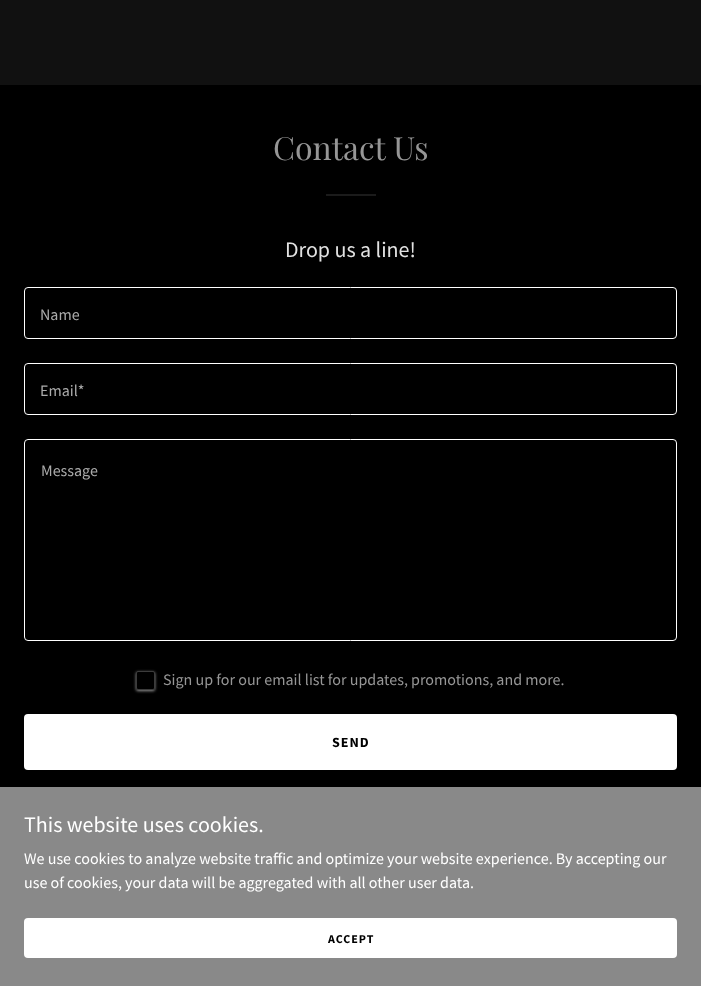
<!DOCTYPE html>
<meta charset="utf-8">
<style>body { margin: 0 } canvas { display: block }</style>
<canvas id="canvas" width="701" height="986"></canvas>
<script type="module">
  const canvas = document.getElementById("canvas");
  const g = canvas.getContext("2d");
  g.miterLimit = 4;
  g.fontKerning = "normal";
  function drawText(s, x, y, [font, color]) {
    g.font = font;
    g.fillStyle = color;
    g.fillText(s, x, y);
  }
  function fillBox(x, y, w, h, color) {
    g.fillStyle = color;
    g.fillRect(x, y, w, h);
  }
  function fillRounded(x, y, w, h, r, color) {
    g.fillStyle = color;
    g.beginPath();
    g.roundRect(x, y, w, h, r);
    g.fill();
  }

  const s1 = ["32px Playfair Display", "#969696"];
  const s2 = ["22px Source Sans Pro", "#E2E2E2"];
  const s3 = ["16px Source Sans Pro", "#ABABAB"];
  const s4 = ["16px Source Sans Pro", "#969696"];
  const s5 = ["bold 14px Source Sans Pro", "#000000"];
  const s6 = ["22px Source Sans Pro", "#FFFFFF"];
  const s7 = ["16px Source Sans Pro", "#FFFFFF"];
  const s8 = ["bold 12px Source Sans Pro", "#000000"];

  fillBox(0, 0, 701, 986, "#000000");
  fillBox(0, 0, 701, 85, "#111111");
  drawText("Contact Us", 273, 160, s1);
  fillBox(326, 194, 50, 2, "#1B1B1B");
  drawText("Drop us a line!", 285, 257, s2);
  g.beginPath();
  g.roundRect(24.5, 287.5, 652, 51, 3.5);
  g.strokeStyle = "#FFFFFF";
  g.stroke();
  drawText("Name", 40, 320, s3);
  g.beginPath();
  g.roundRect(24.5, 363.5, 652, 51, 3.5);
  g.stroke();
  drawText("Email*", 40, 396, s3);
  g.beginPath();
  g.roundRect(24.5, 439.5, 652, 201, 3.5);
  g.stroke();
  drawText("Message", 41, 476, s3);
  g.save();
  g.beginPath();
  g.moveTo(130, 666);
  g.lineTo(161, 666);
  g.lineTo(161, 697);
  g.lineTo(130, 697);
  g.closePath();
  g.moveTo(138, 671);
  g.lineTo(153, 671);
  g.bezierCurveTo(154, 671, 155, 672, 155, 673);
  g.lineTo(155, 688);
  g.bezierCurveTo(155, 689, 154, 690, 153, 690);
  g.lineTo(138, 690);
  g.bezierCurveTo(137, 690, 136, 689, 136, 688);
  g.lineTo(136, 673);
  g.bezierCurveTo(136, 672, 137, 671, 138, 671);
  g.closePath();
  g.clip("evenodd");
  g.fillStyle = "#969696";
  g.filter = "blur(1.5px)";
  g.beginPath();
  g.roundRect(136, 672, 19, 19, 2);
  g.fill();
  g.filter = "none";
  g.restore();
  g.beginPath();
  g.roundRect(136.5, 671.5, 18, 18, 1.5);
  g.strokeStyle = "rgba(119, 119, 119, 0.5)";
  g.stroke();
  drawText("Sign up for our email list for updates, promotions, and more.", 163, 685, s4);
  fillRounded(24, 714, 653, 56, 4, "#FFFFFF");
  g.letterSpacing = "1px";
  drawText("SEND", 332, 747, s5);
  fillBox(0, 787, 701, 199, "#898989");
  g.letterSpacing = "0px";
  drawText("This website uses cookies.", 24, 832, s6);
  drawText("We use cookies to analyze website traffic and optimize your website experience. By accepting our", 24, 864, s7);
  drawText("use of cookies, your data will be aggregated with all other user data.", 24, 888, s7);
  fillRounded(24, 918, 653, 40, 4, "#FFFFFF");
  g.letterSpacing = "1px";
  drawText("ACCEPT", 328, 943, s8);
</script>
